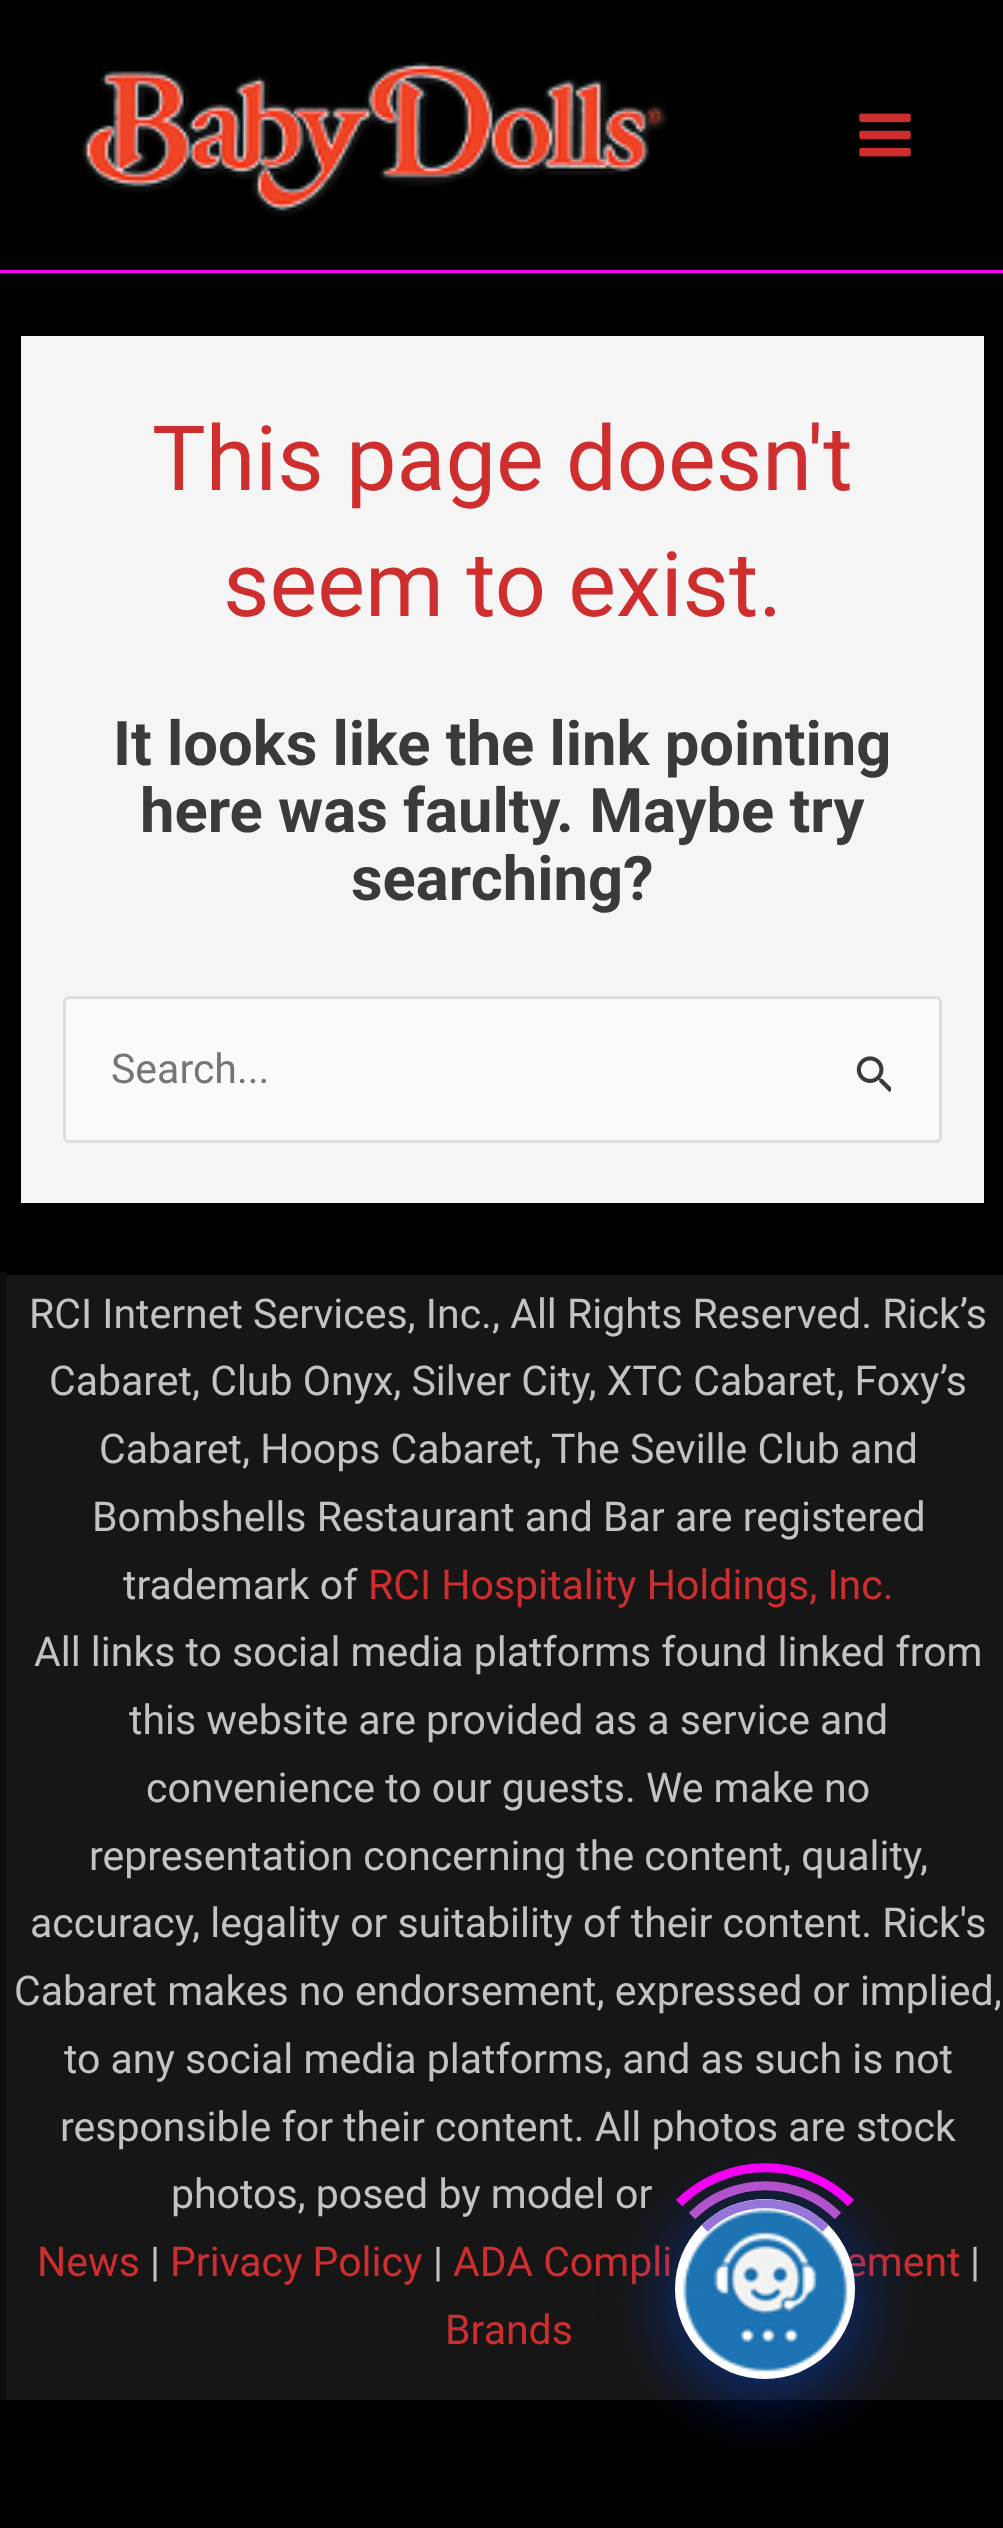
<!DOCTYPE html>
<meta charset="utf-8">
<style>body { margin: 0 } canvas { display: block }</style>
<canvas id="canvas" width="1003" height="2528"></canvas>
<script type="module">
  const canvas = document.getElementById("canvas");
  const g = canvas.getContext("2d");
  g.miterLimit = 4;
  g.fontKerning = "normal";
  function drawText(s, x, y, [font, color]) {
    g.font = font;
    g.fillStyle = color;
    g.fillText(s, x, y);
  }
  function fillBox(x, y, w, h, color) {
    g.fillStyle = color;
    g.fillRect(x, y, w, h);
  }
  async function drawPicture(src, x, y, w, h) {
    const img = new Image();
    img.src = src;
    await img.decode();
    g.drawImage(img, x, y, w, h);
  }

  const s1 = ["90px Roboto", "#CF2E2E"];
  const s2 = ["bold 61.5px Roboto", "#3A3A3A"];
  const s3 = ["41px Roboto", "#757575"];
  const s4 = ["41px Roboto", "#C3C3C3"];
  const s5 = ["41px Roboto", "#CF2E2E"];

  fillBox(0, 0, 1003, 2528, "#000000");
  fillBox(0, 270, 1003, 3, "#FB00FF");
  await drawPicture("pic1.png", 80, 60, 589, 157);
  await drawPicture("pic2.png", 859, 113, 52, 44);
  fillBox(21, 336, 963, 867, "#F5F5F5");
  drawText("This page doesn't", 152, 490, s1);
  drawText("seem to exist.", 223, 616, s1);
  drawText("It looks like the link pointing", 113, 765, s2);
  drawText("here was faulty. Maybe try", 140, 832, s2);
  drawText("searching?", 351, 900, s2);
  g.fillStyle = "#FAFAFA";
  g.beginPath();
  g.roundRect(64.5, 997.5, 876, 144, 4.5);
  g.fill();
  g.strokeStyle = "#DDDDDD";
  g.lineWidth = 3;
  g.stroke();
  drawText("Search...", 111, 1083, s3);
  await drawPicture("pic3.png", 856, 1056, 35, 37);
  fillBox(0, 1272, 6, 1128, "#0D0D0D");
  fillBox(6, 1275, 997, 1125, "#161616");
  drawText("RCI Internet Services, Inc., All Rights Reserved. Rick’s", 29, 1328, s4);
  drawText("Cabaret, Club Onyx, Silver City, XTC Cabaret, Foxy’s", 49, 1395, s4);
  drawText("Cabaret, Hoops Cabaret, The Seville Club and", 99, 1463, s4);
  drawText("Bombshells Restaurant and Bar are registered", 92, 1531, s4);
  drawText("trademark of", 123, 1599, s4);
  drawText("RCI Hospitality Holdings, Inc.", 368, 1599, s5);
  drawText("All links to social media platforms found linked from", 34, 1666, s4);
  drawText("this website are provided as a service and", 129, 1734, s4);
  drawText("convenience to our guests. We make no", 146, 1802, s4);
  drawText("representation concerning the content, quality,", 89, 1870, s4);
  drawText("accuracy, legality or suitability of their content. Rick's", 30, 1937, s4);
  drawText("Cabaret makes no endorsement, expressed or implied,", 14, 2005, s4);
  drawText("to any social media platforms, and as such is not", 64, 2073, s4);
  drawText("responsible for their content. All photos are stock", 60, 2141, s4);
  drawText("photos, posed by model or", 171, 2208, s4);
  drawText("News", 37, 2276, s5);
  drawText("|", 150, 2276, s4);
  drawText("Privacy Policy", 170, 2276, s5);
  drawText("|", 433, 2276, s4);
  drawText("ADA Compli", 453, 2276, s5);
  drawText("ement", 845, 2276, s5);
  drawText("|", 970, 2276, s4);
  drawText("Brands", 445, 2344, s5);
  g.fillStyle = "rgba(0, 77, 255, 0.5)";
  g.filter = "blur(36px)";
  g.beginPath();
  g.roundRect(675, 2211, 180, 180, 90);
  g.fill();
  g.filter = "none";
  g.fillStyle = "#FFFFFF";
  g.beginPath();
  g.arc(765, 2289, 90, 0, Math.PI * 2);
  g.fill();
  await drawPicture("pic4.png", 682, 2209, 166, 163);
  g.beginPath();
  g.moveTo(704.5, 2228.5);
  g.bezierCurveTo(738, 2195.5, 792, 2195.5, 825.5, 2228.5);
  g.strokeStyle = "rgba(147, 112, 219, 0.96)";
  g.lineWidth = 9;
  g.stroke();
  g.beginPath();
  g.moveTo(692, 2216);
  g.bezierCurveTo(732, 2175.5, 798, 2175.5, 838, 2216);
  g.strokeStyle = "rgba(186, 85, 211, 0.96)";
  g.stroke();
  g.beginPath();
  g.moveTo(679, 2203);
  g.bezierCurveTo(726.5, 2156, 803.5, 2156, 851, 2203);
  g.strokeStyle = "rgba(255, 0, 255, 0.96)";
  g.stroke();
</script>
